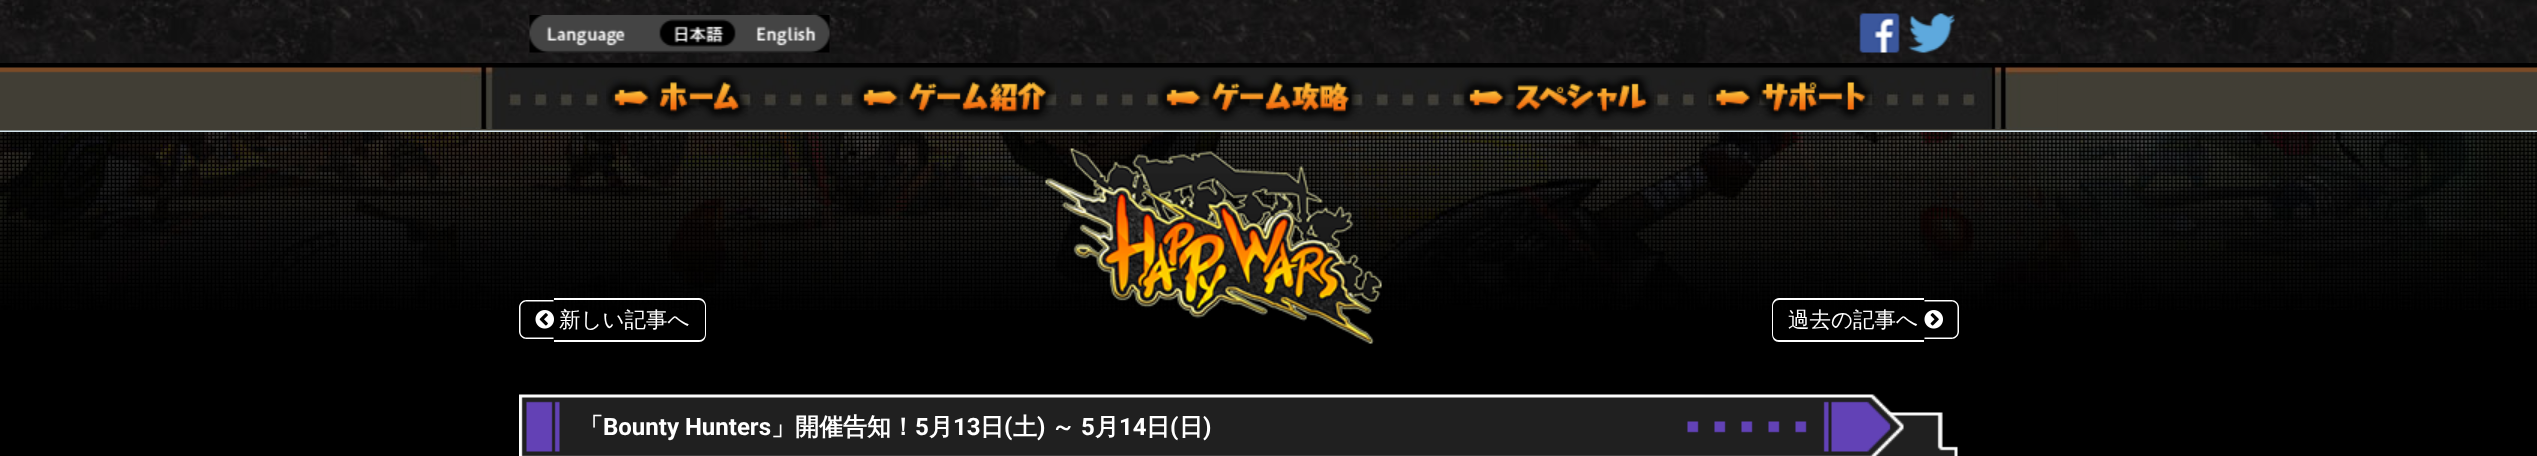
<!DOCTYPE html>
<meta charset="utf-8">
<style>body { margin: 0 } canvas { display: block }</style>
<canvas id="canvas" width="2537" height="456"></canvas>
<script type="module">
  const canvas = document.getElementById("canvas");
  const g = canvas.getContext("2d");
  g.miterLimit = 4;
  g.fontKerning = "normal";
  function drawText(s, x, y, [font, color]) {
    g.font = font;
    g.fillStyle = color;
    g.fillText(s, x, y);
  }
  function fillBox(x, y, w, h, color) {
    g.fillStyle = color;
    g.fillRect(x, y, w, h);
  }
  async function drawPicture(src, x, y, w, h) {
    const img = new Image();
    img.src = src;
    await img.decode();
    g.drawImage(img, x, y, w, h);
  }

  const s1 = ["500 21.5px WenQuanYi Zen Hei", "#FFFFFF"];
  const s2 = ["bold 24px WenQuanYi Zen Hei", "#FFFFFF"];
  const s3 = ["bold 24px Roboto", "#FFFFFF"];

  fillBox(0, 0, 2537, 456, "#000000");
  await drawPicture("pic1.png", 0, 132, 2537, 178);
  await drawPicture("pic2.png", 0, 0, 2537, 63);
  await drawPicture("pic3.png", 529, 15, 301, 38);
  await drawPicture("pic4.png", 1859, 13, 41, 40);
  await drawPicture("pic5.png", 1907, 13, 48, 40);
  await drawPicture("pic6.png", 0, 63, 2537, 69);
  await drawPicture("pic7.png", 460, 64, 1598, 65);
  await drawPicture("pic8.png", 606, 75, 142, 45);
  await drawPicture("pic9.png", 854, 75, 201, 46);
  await drawPicture("pic10.png", 1156, 75, 203, 46);
  await drawPicture("pic11.png", 1459, 75, 195, 45);
  await drawPicture("pic12.png", 1707, 75, 167, 45);
  await drawPicture("pic13.png", 1045, 148, 337, 196);
  g.fillStyle = "#FFFFFF";
  g.beginPath();
  g.moveTo(526.5, 300);
  g.lineTo(553.5, 300);
  g.lineTo(553.5, 339);
  g.lineTo(526.5, 339);
  g.bezierCurveTo(522.5, 339, 519, 335.5, 519, 331.5);
  g.lineTo(519, 307.5);
  g.bezierCurveTo(519, 303.5, 522.5, 300, 526.5, 300);
  g.closePath();
  g.moveTo(526.5, 301.5);
  g.lineTo(553.5, 301.5);
  g.lineTo(553.5, 337.5);
  g.lineTo(526.5, 337.5);
  g.bezierCurveTo(523, 337.5, 520.5, 335, 520.5, 331.5);
  g.lineTo(520.5, 307.5);
  g.bezierCurveTo(520.5, 304, 523, 301.5, 526.5, 301.5);
  g.closePath();
  g.fill("evenodd");
  g.beginPath();
  g.moveTo(554, 298);
  g.lineTo(699, 298);
  g.bezierCurveTo(703, 298, 706, 302, 706, 306);
  g.lineTo(706, 334);
  g.bezierCurveTo(706, 339, 703, 342, 699, 342);
  g.lineTo(554, 342);
  g.closePath();
  g.moveTo(554, 300);
  g.lineTo(699, 300);
  g.bezierCurveTo(702, 300, 705, 303, 705, 306);
  g.lineTo(705, 334);
  g.bezierCurveTo(705, 338, 702, 340, 699, 340);
  g.lineTo(554, 340);
  g.closePath();
  g.fill("evenodd");
  await drawPicture("pic14.png", 535, 310, 19, 19);
  drawText("新しい記事へ", 559, 327, s1);
  g.fillStyle = "rgba(0, 0, 0, 0.55)";
  g.beginPath();
  g.roundRect(1772, 299, 153, 43, [8, 0, 0, 8]);
  g.fill();
  g.fillStyle = "#FFFFFF";
  g.beginPath();
  g.moveTo(1779, 298);
  g.lineTo(1924, 298);
  g.lineTo(1924, 342);
  g.lineTo(1779, 342);
  g.bezierCurveTo(1775, 342, 1772, 339, 1772, 334);
  g.lineTo(1772, 306);
  g.bezierCurveTo(1772, 302, 1775, 298, 1779, 298);
  g.closePath();
  g.moveTo(1779, 300);
  g.lineTo(1924, 300);
  g.lineTo(1924, 340);
  g.lineTo(1779, 340);
  g.bezierCurveTo(1776, 340, 1773, 338, 1773, 334);
  g.lineTo(1773, 306);
  g.bezierCurveTo(1773, 303, 1776, 300, 1779, 300);
  g.closePath();
  g.fill("evenodd");
  g.fillStyle = "rgba(0, 0, 0, 0.55)";
  g.beginPath();
  g.roundRect(1925, 300, 34, 39, [0, 8, 8, 0]);
  g.fill();
  g.fillStyle = "#FFFFFF";
  g.beginPath();
  g.moveTo(1924.5, 300);
  g.lineTo(1951.5, 300);
  g.bezierCurveTo(1955.5, 300, 1959, 303.5, 1959, 307.5);
  g.lineTo(1959, 331.5);
  g.bezierCurveTo(1959, 335.5, 1955.5, 339, 1951.5, 339);
  g.lineTo(1924.5, 339);
  g.closePath();
  g.moveTo(1924.5, 301.5);
  g.lineTo(1951.5, 301.5);
  g.bezierCurveTo(1955, 301.5, 1957.5, 304, 1957.5, 307.5);
  g.lineTo(1957.5, 331.5);
  g.bezierCurveTo(1957.5, 335, 1955, 337.5, 1951.5, 337.5);
  g.lineTo(1924.5, 337.5);
  g.closePath();
  g.fill("evenodd");
  drawText("過去の記事へ", 1788, 327, s1);
  await drawPicture("pic15.png", 1924, 310, 19, 19);
  await drawPicture("pic16.png", 1873, 412, 85, 44);
  await drawPicture("pic17.png", 519, 394, 1385, 62);
  drawText("「", 579, 435, s2);
  drawText("Bounty Hunters", 603, 435, s3);
  drawText("」開催告知！", 771, 435, s2);
  drawText("5", 915, 435, s3);
  drawText("月", 929, 435, s2);
  drawText("13", 953, 435, s3);
  drawText("日", 980, 435, s2);
  drawText("(", 1004, 435, s3);
  drawText("土", 1013, 435, s2);
  drawText(")", 1037, 435, s3);
  drawText("～", 1051, 435, s2);
  drawText("5", 1081, 435, s3);
  drawText("月", 1095, 435, s2);
  drawText("14", 1119, 435, s3);
  drawText("日", 1146, 435, s2);
  drawText("(", 1170, 435, s3);
  drawText("日", 1179, 435, s2);
  drawText(")", 1203, 435, s3);
</script>
